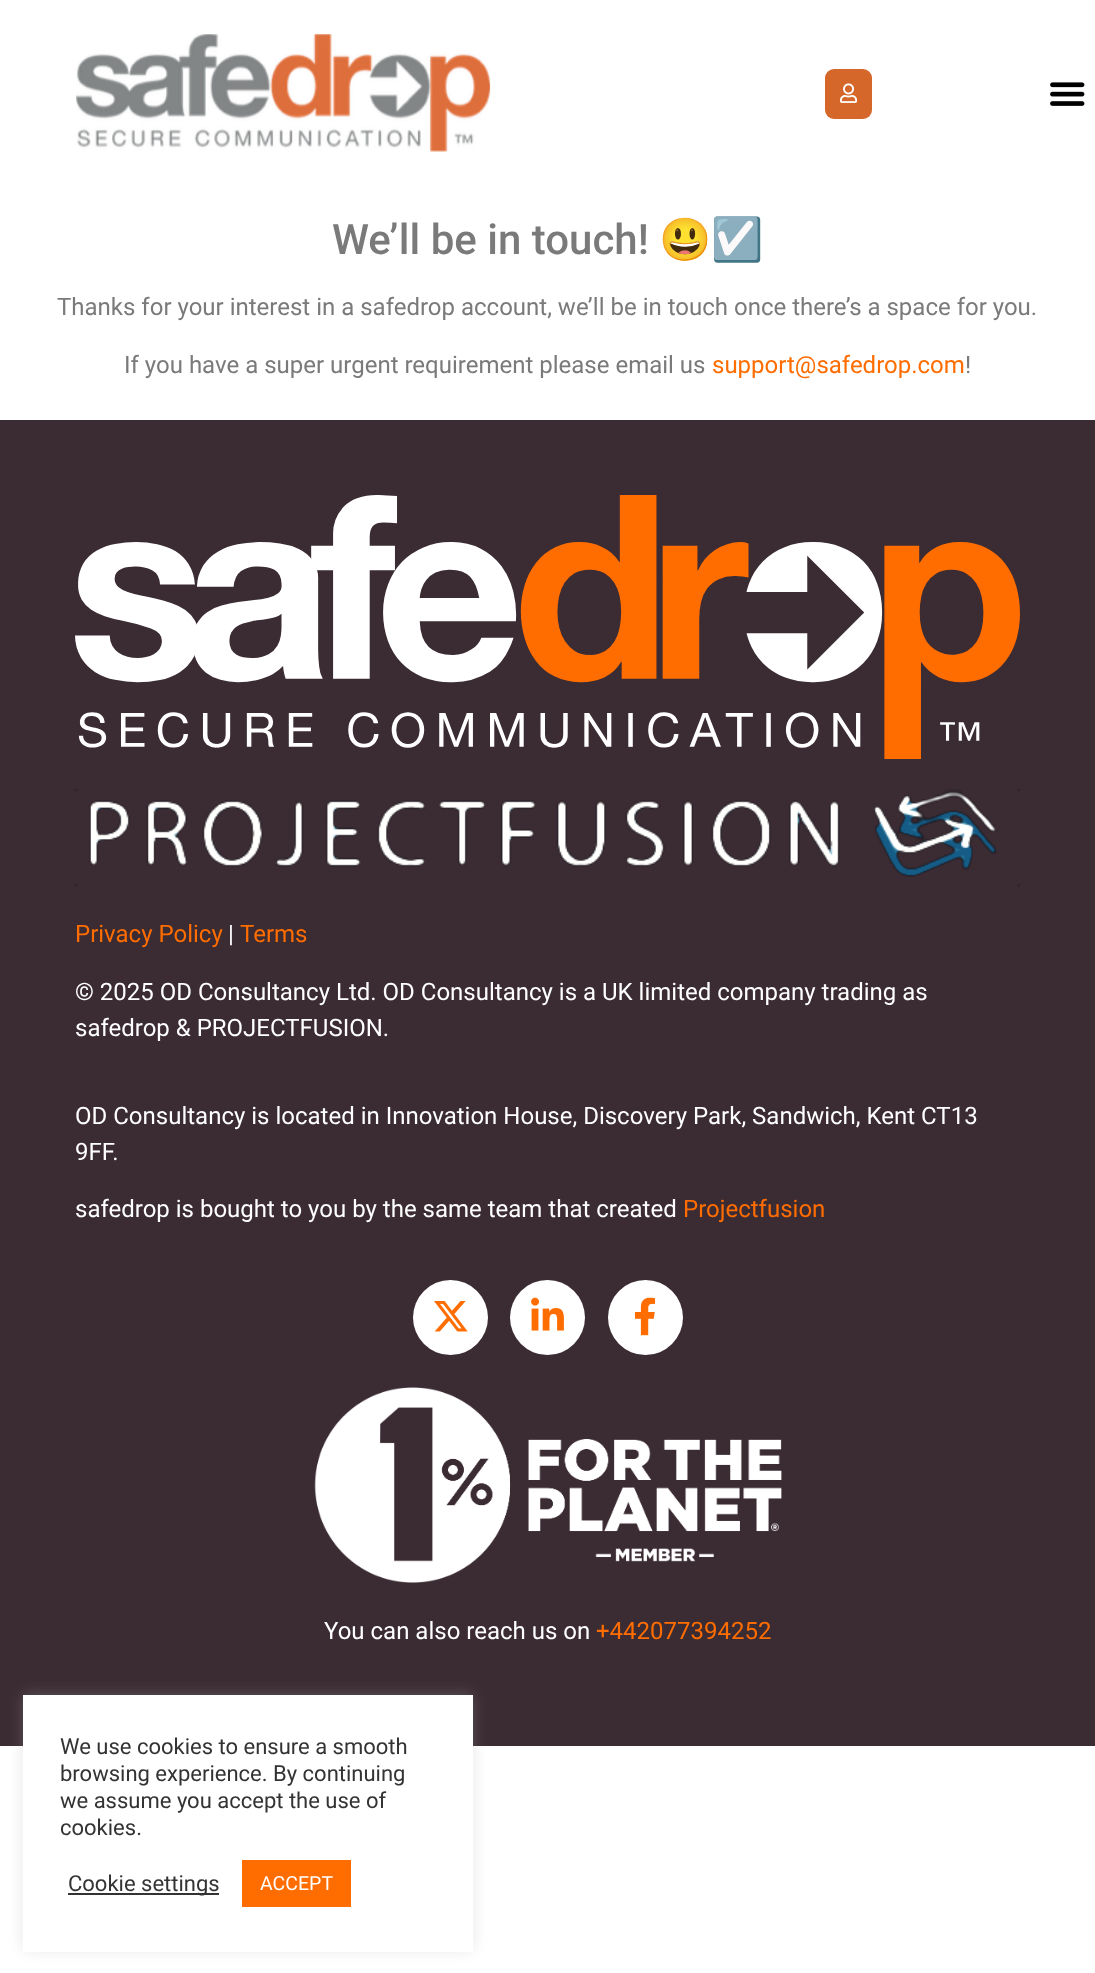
<!DOCTYPE html>
<meta charset="utf-8">
<style>body { margin: 0 } canvas { display: block }</style>
<canvas id="canvas" width="1095" height="1973"></canvas>
<script type="module">
  const canvas = document.getElementById("canvas");
  const g = canvas.getContext("2d");
  g.miterLimit = 4;
  g.fontKerning = "normal";
  function drawText(s, x, y, [font, color]) {
    g.font = font;
    g.fillStyle = color;
    g.fillText(s, x, y);
  }
  function fillBox(x, y, w, h, color) {
    g.fillStyle = color;
    g.fillRect(x, y, w, h);
  }
  function fillRounded(x, y, w, h, r, color) {
    g.fillStyle = color;
    g.beginPath();
    g.roundRect(x, y, w, h, r);
    g.fill();
  }
  async function drawPicture(src, x, y, w, h) {
    const img = new Image();
    img.src = src;
    await img.decode();
    g.drawImage(img, x, y, w, h);
  }

  const s1 = ["500 42px Roboto", "#7A7A7A"];
  const s2 = ["42px Noto Color Emoji", "#7A7A7A"];
  const s3 = ["24px Roboto", "#7A7A7A"];
  const s4 = ["24px Roboto", "#FF6D00"];
  const s5 = ["24px Roboto", "#FFFFFF"];
  const s6 = ["22px Roboto", "#333333"];
  const s7 = ["19.5px Roboto", "#FFFFFF"];

  fillBox(0, 0, 1095, 1973, "#FFFFFF");
  await drawPicture("pic1.png", 76, 34, 415, 118);
  fillRounded(825, 69, 47, 50, 9, "#D5672A");
  await drawPicture("pic2.png", 840, 83, 18, 20);
  await drawPicture("pic3.png", 1050, 82, 35, 24);
  drawText("We’ll be in touch!", 332, 254, s1);
  drawText("😃☑️", 659, 254, s2);
  drawText("Thanks for your interest in a safedrop account, we’ll be in touch once there’s a space for you.", 57, 315, s3);
  drawText("If you have a super urgent requirement please email us", 124, 373, s3);
  drawText("support@safedrop.com", 712, 373, s4);
  drawText("!", 965, 373, s3);
  fillBox(0, 420, 1095, 1326, "#3B2B33");
  await drawPicture("pic4.png", 75, 495, 945, 264);
  await drawPicture("pic5.png", 75, 789, 945, 98);
  drawText("Privacy Policy", 75, 942, s4);
  drawText("|", 228, 942, s5);
  drawText("Terms", 240, 942, s4);
  drawText("© 2025 OD Consultancy Ltd. OD Consultancy is a UK limited company trading as", 75, 1000, s5);
  drawText("safedrop & PROJECTFUSION.", 75, 1036, s5);
  drawText("OD Consultancy is located in Innovation House, Discovery Park, Sandwich, Kent CT13", 75, 1124, s5);
  drawText("9FF.", 75, 1160, s5);
  drawText("safedrop is bought to you by the same team that created", 75, 1217, s5);
  drawText("Projectfusion", 683, 1217, s4);
  g.fillStyle = "#FFFFFF";
  g.beginPath();
  g.arc(450.5, 1317.5, 37.5, 0, Math.PI * 2);
  g.fill();
  await drawPicture("pic6.png", 434, 1301, 34, 31);
  g.beginPath();
  g.arc(547.5, 1317.5, 37.5, 0, Math.PI * 2);
  g.fill();
  await drawPicture("pic7.png", 531, 1297, 33, 34);
  g.beginPath();
  g.arc(645.5, 1317.5, 37.5, 0, Math.PI * 2);
  g.fill();
  await drawPicture("pic8.png", 634, 1297, 22, 39);
  await drawPicture("pic9.png", 314, 1387, 468, 196);
  drawText("You can also reach us on", 324, 1639, s5);
  drawText("+442077394252", 596, 1639, s4);
  g.fillStyle = "rgba(172, 171, 171, 0.3)";
  g.filter = "blur(7.5px)";
  g.beginPath();
  g.rect(23, 1694, 450, 256);
  g.fill();
  g.filter = "none";
  fillBox(23, 1695, 450, 257, "#FFFFFF");
  drawText("We use cookies to ensure a smooth", 60, 1754, s6);
  drawText("browsing experience. By continuing", 60, 1781, s6);
  drawText("we assume you accept the use of", 60, 1808, s6);
  drawText("cookies.", 60, 1835, s6);
  fillBox(68, 1893, 151, 2, "#333333");
  drawText("Cookie settings", 68, 1891, s6);
  fillBox(242, 1860, 109, 47, "#FF6D00");
  drawText("ACCEPT", 260, 1890, s7);
</script>
